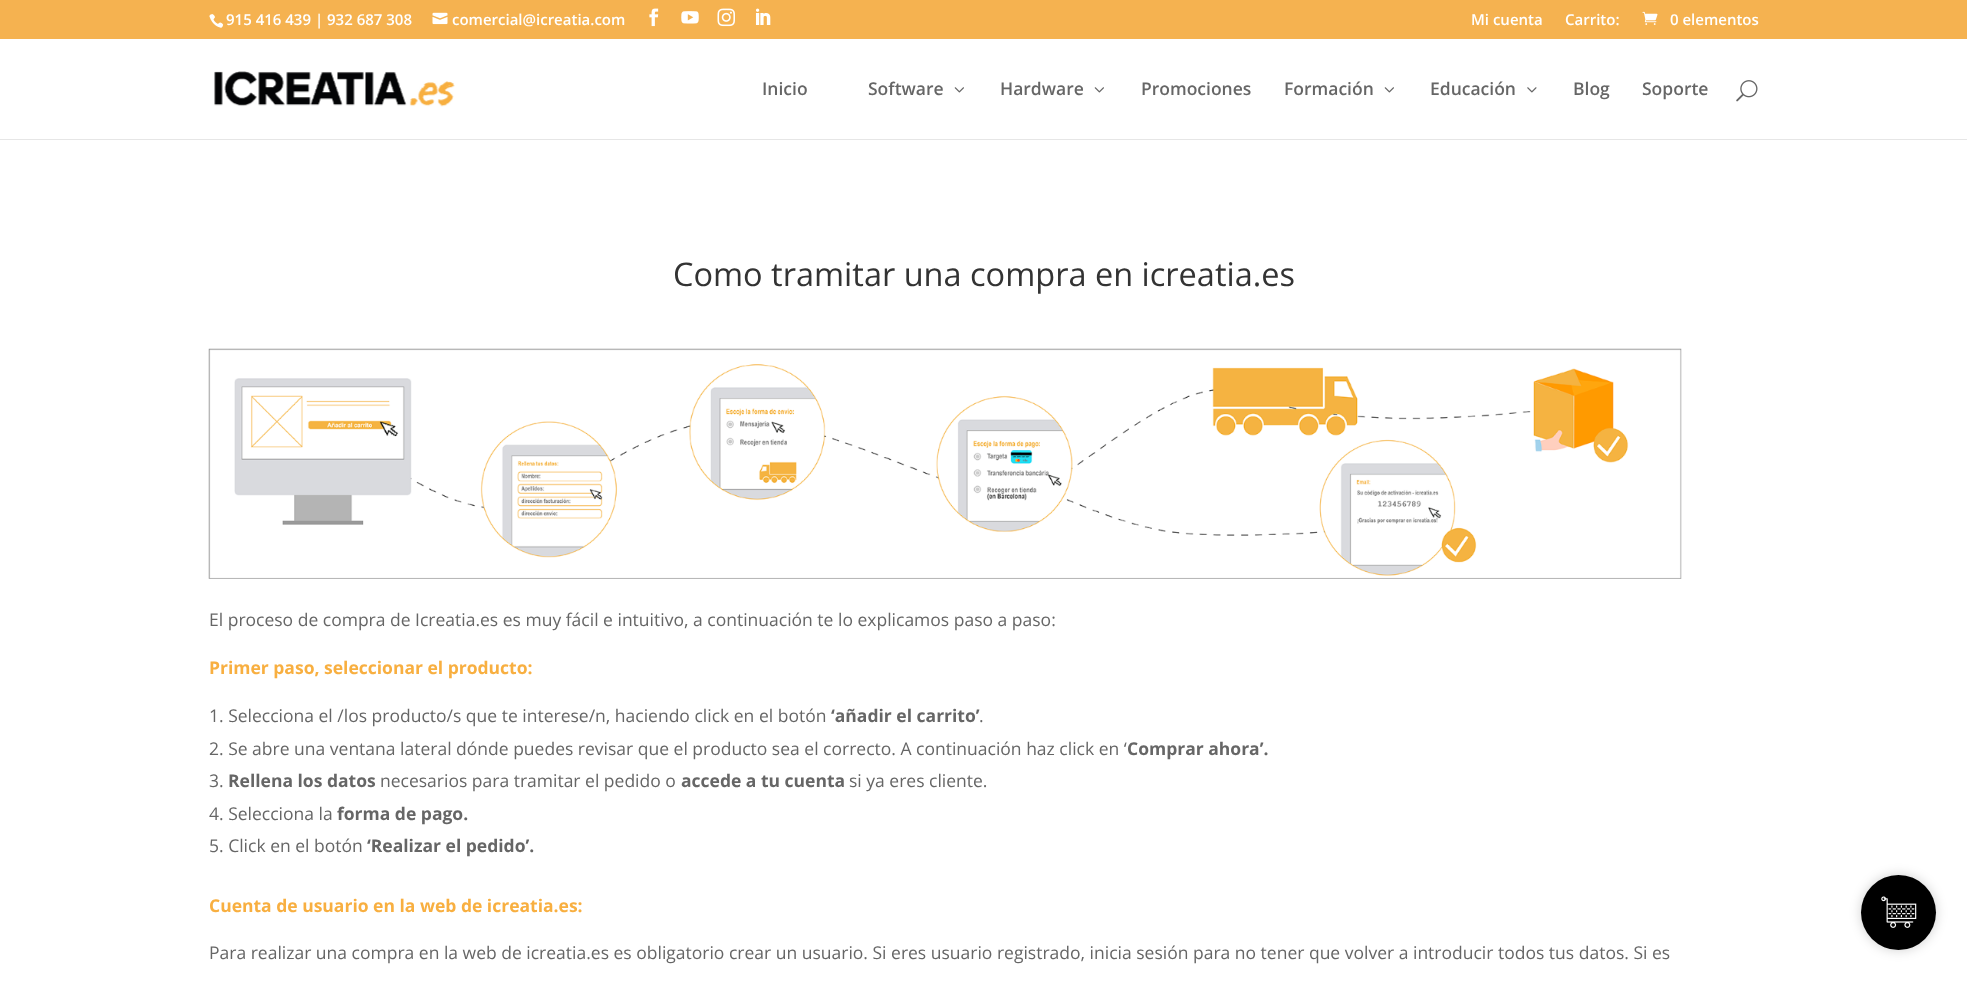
<!DOCTYPE html>
<meta charset="utf-8">
<style>body { margin: 0 } canvas { display: block }</style>
<canvas id="canvas" width="1967" height="981"></canvas>
<script type="module">
  const canvas = document.getElementById("canvas");
  const g = canvas.getContext("2d");
  g.miterLimit = 4;
  g.fontKerning = "normal";
  function drawText(s, x, y, [font, color]) {
    g.font = font;
    g.fillStyle = color;
    g.fillText(s, x, y);
  }
  function fillBox(x, y, w, h, color) {
    g.fillStyle = color;
    g.fillRect(x, y, w, h);
  }
  async function drawPicture(src, x, y, w, h) {
    const img = new Image();
    img.src = src;
    await img.decode();
    g.drawImage(img, x, y, w, h);
  }

  const s1 = ["600 15px Open Sans", "#FFFFFF"];
  const s2 = ["600 17.5px Open Sans", "#666666"];
  const s3 = ["32.5px Open Sans", "#333333"];
  const s4 = ["17.5px Open Sans", "#666666"];
  const s5 = ["bold 17.5px Open Sans", "#F8AF40"];
  const s6 = ["bold 17.5px Open Sans", "#666666"];

  fillBox(0, 0, 1967, 981, "#F5B250");
  await drawPicture("pic1.png", 209, 14, 15, 14);
  drawText("915 416 439 | 932 687 308", 226, 25, s1);
  await drawPicture("pic2.png", 432, 12, 16, 13);
  drawText("comercial@icreatia.com", 452, 25, s1);
  await drawPicture("pic3.png", 649, 8, 10, 19);
  await drawPicture("pic4.png", 681, 11, 18, 13);
  await drawPicture("pic5.png", 717, 8, 18, 19);
  await drawPicture("pic6.png", 755, 8, 16, 17);
  drawText("Mi cuenta", 1471, 25, s1);
  drawText("Carrito:", 1565, 25, s1);
  await drawPicture("pic7.png", 1642, 11, 16, 14);
  drawText("0 elementos", 1670, 25, s1);
  g.fillStyle = "#E6E6E6";
  g.beginPath();
  g.moveTo(0, 139);
  g.lineTo(0, 140);
  g.lineTo(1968, 140);
  g.lineTo(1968, 40);
  g.lineTo(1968, 139);
  g.closePath();
  g.fill();
  fillBox(0, 39, 1967, 100, "#FFFFFF");
  await drawPicture("pic8.png", 214, 71, 241, 36);
  drawText("Inicio", 762, 95, s2);
  drawText("Software", 868, 95, s2);
  await drawPicture("pic9.png", 954, 87, 10, 6);
  drawText("Hardware", 1000, 95, s2);
  await drawPicture("pic9.png", 1094, 87, 10, 6);
  drawText("Promociones", 1141, 95, s2);
  drawText("Formación", 1284, 95, s2);
  await drawPicture("pic9.png", 1384, 87, 10, 6);
  drawText("Educación", 1430, 95, s2);
  await drawPicture("pic10.png", 1527, 87, 10, 6);
  drawText("Blog", 1573, 95, s2);
  drawText("Soporte", 1642, 95, s2);
  await drawPicture("pic11.png", 1736, 80, 22, 22);
  fillBox(0, 140, 1967, 841, "#FFFFFF");
  drawText("Como tramitar una compra en icreatia.es", 673, 286, s3);
  await drawPicture("pic12.png", 208, 348, 1474, 231);
  drawText("El proceso de compra de Icreatia.es es muy fácil e intuitivo, a continuación te lo explicamos paso a paso:", 209, 626, s4);
  drawText("Primer paso, seleccionar el producto:", 209, 674, s5);
  drawText("1. Selecciona el /los producto/s que te interese/n, haciendo click en el botón", 209, 722, s4);
  drawText("‘añadir el carrito’", 831, 722, s6);
  drawText(".", 979, 722, s4);
  drawText("2. Se abre una ventana lateral dónde puedes revisar que el producto sea el correcto. A continuación haz click en ‘", 209, 755, s4);
  drawText("Comprar ahora’.", 1127, 755, s6);
  drawText("3.", 209, 787, s4);
  drawText("Rellena los datos", 228, 787, s6);
  drawText("necesarios para tramitar el pedido o", 380, 787, s4);
  drawText("accede a tu cuenta", 681, 787, s6);
  drawText("si ya eres cliente.", 849, 787, s4);
  drawText("4. Selecciona la", 209, 820, s4);
  drawText("forma de pago.", 337, 820, s6);
  drawText("5. Click en el botón", 209, 852, s4);
  drawText("‘Realizar el pedido’.", 367, 852, s6);
  drawText("Cuenta de usuario en la web de icreatia.es:", 209, 912, s5);
  drawText("Para realizar una compra en la web de icreatia.es es obligatorio crear un usuario. Si eres usuario registrado, inicia sesión para no tener que volver a introducir todos tus datos. Si es", 209, 959, s4);
  g.fillStyle = "rgba(0, 0, 0, 0.19)";
  g.filter = "blur(6px)";
  g.beginPath();
  g.roundRect(1861, 875, 75, 75, 37.5);
  g.fill();
  g.filter = "none";
  g.fillStyle = "#000000";
  g.beginPath();
  g.arc(1898.5, 912.5, 37.5, 0, Math.PI * 2);
  g.fill();
  await drawPicture("pic13.png", 1881, 896, 36, 32);
</script>
